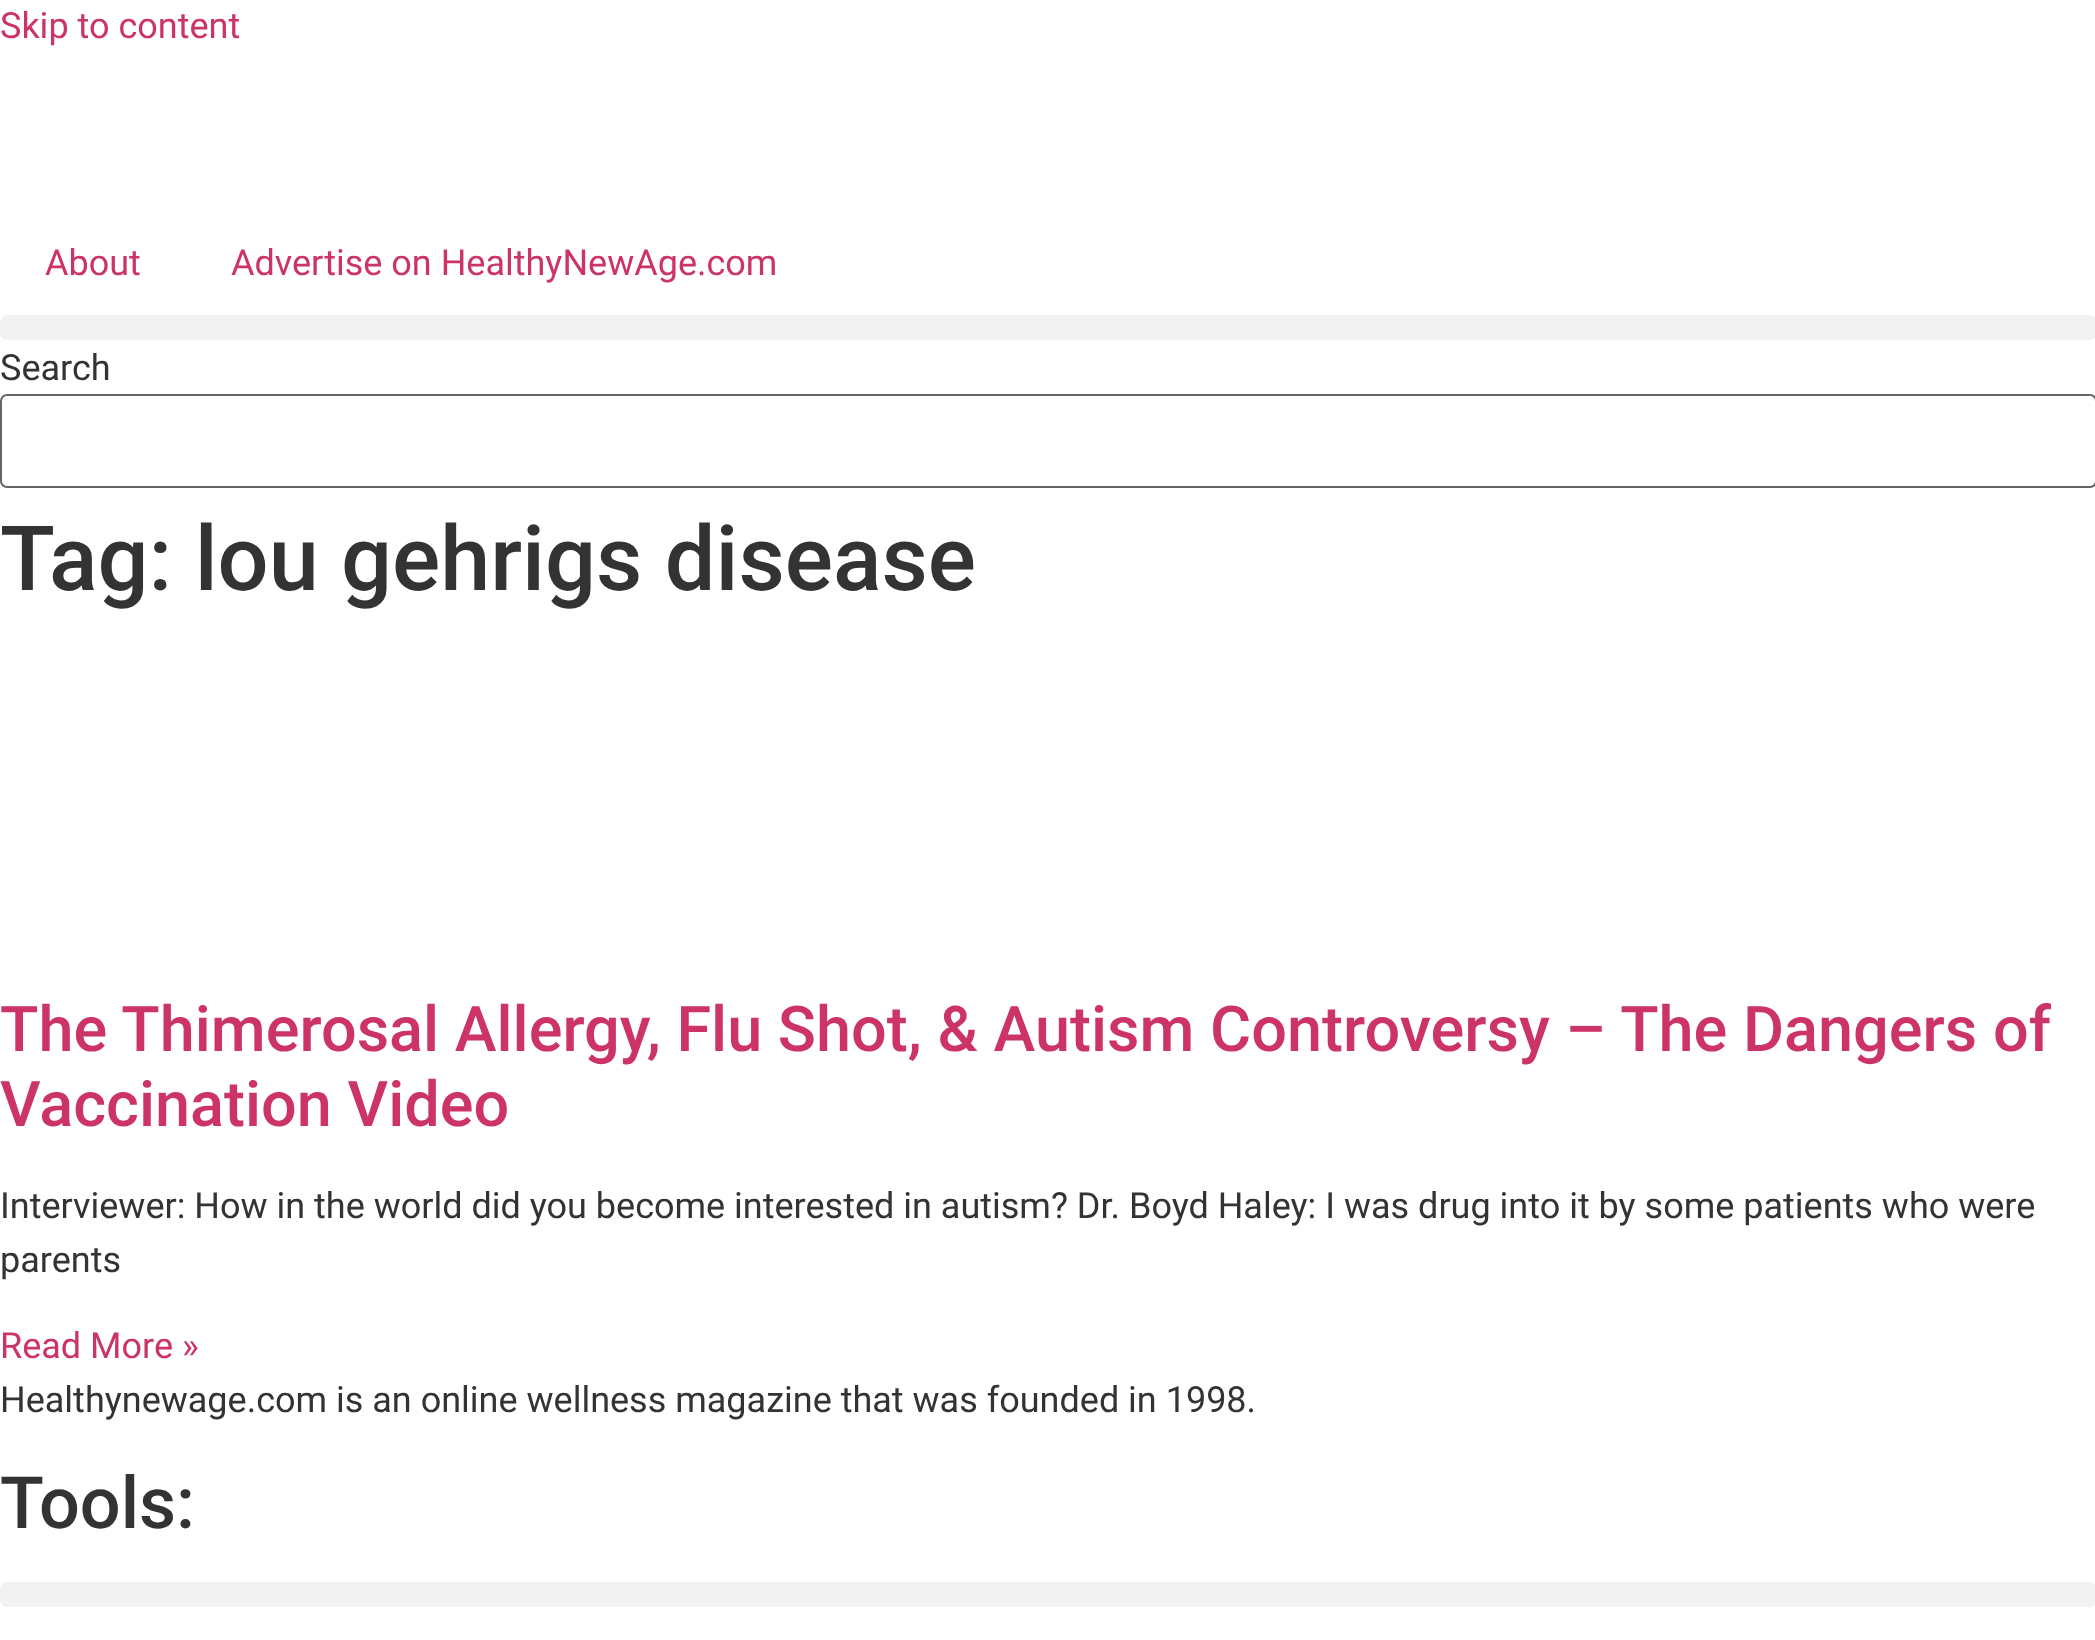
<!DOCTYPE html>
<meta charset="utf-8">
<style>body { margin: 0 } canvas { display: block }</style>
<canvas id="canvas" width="2095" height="1640"></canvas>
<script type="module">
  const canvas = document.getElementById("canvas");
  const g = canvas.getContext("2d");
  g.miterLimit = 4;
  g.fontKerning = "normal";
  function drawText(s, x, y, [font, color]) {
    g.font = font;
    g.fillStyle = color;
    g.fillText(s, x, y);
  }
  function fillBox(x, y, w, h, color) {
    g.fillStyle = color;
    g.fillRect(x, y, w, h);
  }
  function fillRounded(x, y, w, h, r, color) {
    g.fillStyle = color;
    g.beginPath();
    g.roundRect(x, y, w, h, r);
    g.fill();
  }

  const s1 = ["36px Roboto", "#CC3366"];
  const s2 = ["36px Roboto", "#333333"];
  const s3 = ["500 90px Roboto", "#333333"];
  const s4 = ["500 63px Roboto", "#CC3366"];
  const s5 = ["500 72px Roboto", "#333333"];

  fillBox(0, 0, 2095, 1640, "#FFFFFF");
  drawText("Skip to content", 0, 38, s1);
  drawText("About", 45, 275, s1);
  drawText("Advertise on HealthyNewAge.com", 231, 275, s1);
  fillRounded(0, 315, 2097, 25, 7, "#F2F2F2");
  drawText("Search", 0, 380, s2);
  g.beginPath();
  g.roundRect(1, 395, 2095, 92, 6);
  g.strokeStyle = "#666666";
  g.lineWidth = 2;
  g.stroke();
  drawText("Tag: lou gehrigs disease", 0, 590, s3);
  drawText("The Thimerosal Allergy, Flu Shot, & Autism Controversy – The Dangers of", 0, 1051, s4);
  drawText("Vaccination Video", 0, 1126, s4);
  drawText("Interviewer: How in the world did you become interested in autism? Dr. Boyd Haley: I was drug into it by some patients who were", 0, 1218, s2);
  drawText("parents", 0, 1272, s2);
  drawText("Read More »", 0, 1358, s1);
  drawText("Healthynewage.com is an online wellness magazine that was founded in 1998.", 0, 1412, s2);
  drawText("Tools:", 0, 1528, s5);
  fillRounded(0, 1582, 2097, 25, 7, "#F2F2F2");
</script>
